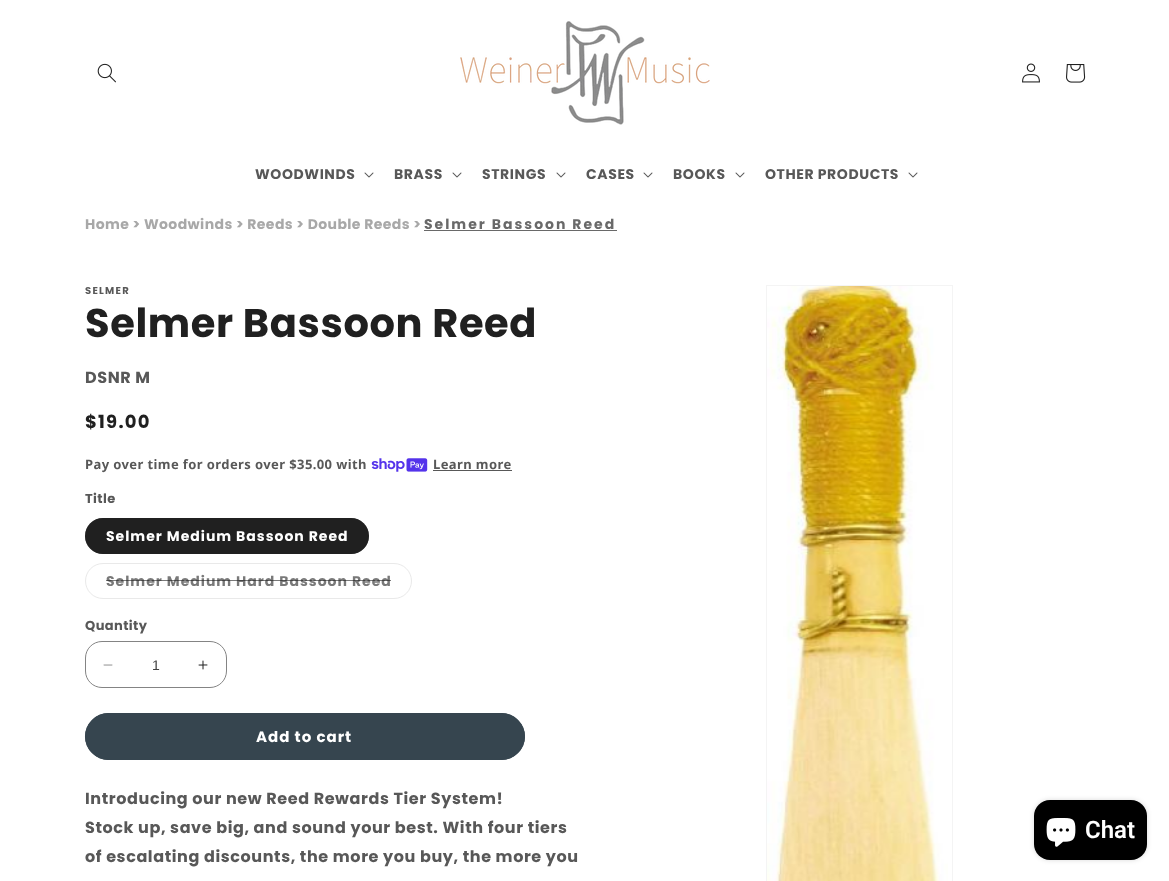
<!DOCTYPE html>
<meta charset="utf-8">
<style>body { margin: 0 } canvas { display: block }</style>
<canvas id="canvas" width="1169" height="881"></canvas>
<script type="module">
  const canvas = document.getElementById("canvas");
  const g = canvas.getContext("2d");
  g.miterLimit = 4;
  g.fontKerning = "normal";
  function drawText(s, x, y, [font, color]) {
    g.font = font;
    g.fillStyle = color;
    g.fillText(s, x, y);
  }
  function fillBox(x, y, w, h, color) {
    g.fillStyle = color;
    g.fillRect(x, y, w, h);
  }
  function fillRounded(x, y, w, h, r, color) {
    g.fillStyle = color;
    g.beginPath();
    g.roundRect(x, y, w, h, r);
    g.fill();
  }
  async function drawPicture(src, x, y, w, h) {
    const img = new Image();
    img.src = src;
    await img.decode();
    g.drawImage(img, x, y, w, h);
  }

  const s1 = ["bold 14px Poppins", "#585858"];
  const s2 = ["bold 14px Poppins", "#A8A8A8"];
  const s3 = ["bold 14px Poppins", "#696969"];
  const s4 = ["bold 10px Poppins", "#585858"];
  const s5 = ["bold 40px Poppins", "#202020"];
  const s6 = ["bold 16px Poppins", "#585858"];
  const s7 = ["bold 18px Poppins", "#202020"];
  const s8 = ["bold 13px Noto Sans", "#585858"];
  const s9 = ["bold 13px Poppins", "#585858"];
  const s10 = ["bold 14px Poppins", "#FFFFFF"];
  const s11 = ["bold 14px Poppins", "#797979"];
  const s12 = ["14px Liberation Sans", "#414141"];
  const s13 = ["bold 15px Poppins", "#FFFFFF"];
  const s14 = ["600 24px Roboto", "#FFFFFF"];

  fillBox(0, 0, 1169, 881, "#FFFFFF");
  await drawPicture("pic1.png", 97, 63, 19, 20);
  await drawPicture("pic2.png", 460, 21, 250, 104);
  await drawPicture("pic3.png", 1022, 63, 18, 20);
  await drawPicture("pic4.png", 1066, 64, 20, 19);
  g.letterSpacing = "0.6px";
  drawText("WOODWINDS", 255, 179, s1);
  await drawPicture("pic5.png", 364, 172, 10, 6);
  drawText("BRASS", 394, 179, s1);
  await drawPicture("pic5.png", 452, 172, 10, 6);
  drawText("STRINGS", 482, 179, s1);
  await drawPicture("pic5.png", 556, 172, 10, 6);
  drawText("CASES", 586, 179, s1);
  await drawPicture("pic5.png", 643, 172, 10, 6);
  drawText("BOOKS", 673, 179, s1);
  await drawPicture("pic5.png", 735, 172, 10, 6);
  drawText("OTHER PRODUCTS", 765, 179, s1);
  await drawPicture("pic5.png", 908, 172, 10, 6);
  g.letterSpacing = "0.4px";
  drawText("Home > Woodwinds > Reeds > Double Reeds >", 85, 229, s2);
  g.letterSpacing = "2px";
  drawText("Selmer Bassoon Reed", 424, 229, s3);
  fillBox(424, 230, 193, 1, "#696969");
  g.letterSpacing = "1.25px";
  drawText("SELMER", 85, 294, s4);
  g.letterSpacing = "0.6px";
  drawText("Selmer Bassoon Reed", 85, 337, s5);
  drawText("DSNR M", 85, 383, s6);
  g.letterSpacing = "1.25px";
  drawText("$19.00", 85, 428, s7);
  g.letterSpacing = "0.4px";
  drawText("Pay over time for orders over $35.00 with", 85, 469, s8);
  await drawPicture("pic6.png", 371, 458, 57, 14);
  drawText("Learn more", 433, 469, s8);
  fillBox(433, 470, 79, 1, "#585858");
  drawText("Title", 85, 503, s9);
  fillRounded(85, 518, 284, 36, 18, "#202020");
  g.beginPath();
  g.roundRect(85.5, 518.5, 283, 35, 17.5);
  g.strokeStyle = "rgba(32, 32, 32, 0.55)";
  g.stroke();
  g.letterSpacing = "1px";
  drawText("Selmer Medium Bassoon Reed", 106, 541, s10);
  g.beginPath();
  g.roundRect(85.5, 563.5, 326, 35, 17.5);
  g.strokeStyle = "#E9E9E9";
  g.stroke();
  drawText("Selmer Medium Hard Bassoon Reed", 106, 586, s11);
  fillBox(106, 580, 285, 1, "rgba(32, 32, 32, 0.6)");
  g.letterSpacing = "0.4px";
  drawText("Quantity", 85, 630, s9);
  await drawPicture("pic7.png", 103, 664, 10, 2);
  await drawPicture("pic8.png", 198, 660, 10, 10);
  g.beginPath();
  g.roundRect(85.5, 641.5, 141, 46, 16.5);
  g.strokeStyle = "#848484";
  g.stroke();
  g.letterSpacing = "0px";
  drawText("1", 152, 670, s12);
  fillRounded(85, 713, 440, 47, 23.5, "#36454F");
  g.beginPath();
  g.roundRect(85.5, 713.5, 439, 46, 23);
  g.strokeStyle = "#36454F";
  g.stroke();
  g.letterSpacing = "1px";
  drawText("Add to cart", 256, 742, s13);
  g.letterSpacing = "0.6px";
  drawText("Introducing our new Reed Rewards Tier System!", 85, 804, s6);
  drawText("Stock up, save big, and sound your best. With four tiers", 85, 833, s6);
  drawText("of escalating discounts, the more you buy, the more you", 85, 862, s6);
  g.strokeStyle = "#F4F4F4";
  g.strokeRect(766.5, 285.5, 186, 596);
  await drawPicture("pic9.png", 767, 286, 181, 595);
  g.fillStyle = "rgba(0, 0, 0, 0.15)";
  g.filter = "blur(2.5px)";
  g.beginPath();
  g.roundRect(1034, 800, 113, 60, 16);
  g.fill();
  g.filter = "none";
  fillRounded(1034, 800, 113, 60, 16, "#000000");
  await drawPicture("pic10.png", 1046, 818, 30, 29);
  g.letterSpacing = "0px";
  drawText("Chat", 1085, 838, s14);
</script>
